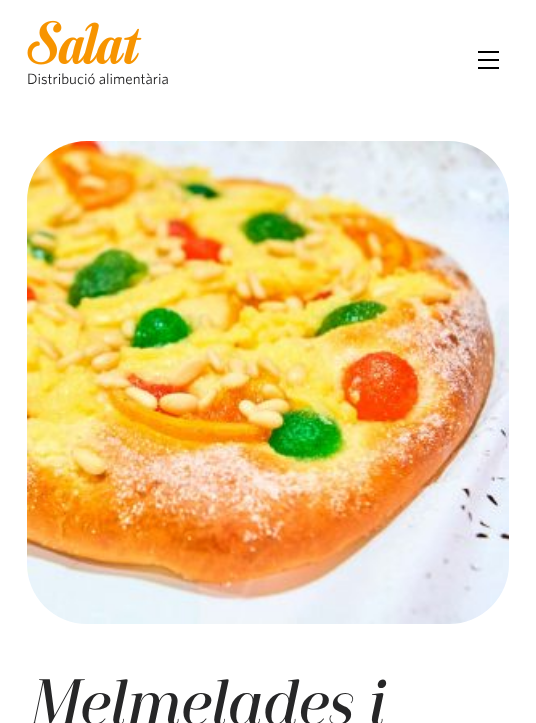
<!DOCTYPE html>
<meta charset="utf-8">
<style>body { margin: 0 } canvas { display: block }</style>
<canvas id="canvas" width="536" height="723"></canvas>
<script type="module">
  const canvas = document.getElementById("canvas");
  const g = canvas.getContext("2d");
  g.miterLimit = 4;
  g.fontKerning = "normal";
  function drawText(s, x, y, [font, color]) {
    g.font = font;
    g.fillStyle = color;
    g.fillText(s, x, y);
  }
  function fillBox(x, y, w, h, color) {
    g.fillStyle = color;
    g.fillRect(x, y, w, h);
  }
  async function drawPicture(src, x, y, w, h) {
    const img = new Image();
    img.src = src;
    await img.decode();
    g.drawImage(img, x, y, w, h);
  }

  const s1 = ["15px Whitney", "#262627"];
  const s2 = ["italic 600 64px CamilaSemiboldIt", "#262627"];

  fillBox(0, 0, 536, 723, "#FFFFFF");
  fillBox(478, 67, 21, 2, "#000000");
  fillBox(478, 51, 21, 2, "#000000");
  fillBox(478, 59, 21, 2, "#000000");
  await drawPicture("pic1.png", 27, 20, 115, 45);
  drawText("Distribució alimentària", 27, 84, s1);
  await drawPicture("pic2.png", 27, 141, 482, 483);
  drawText("Melmelades i", 27, 724, s2);
</script>
